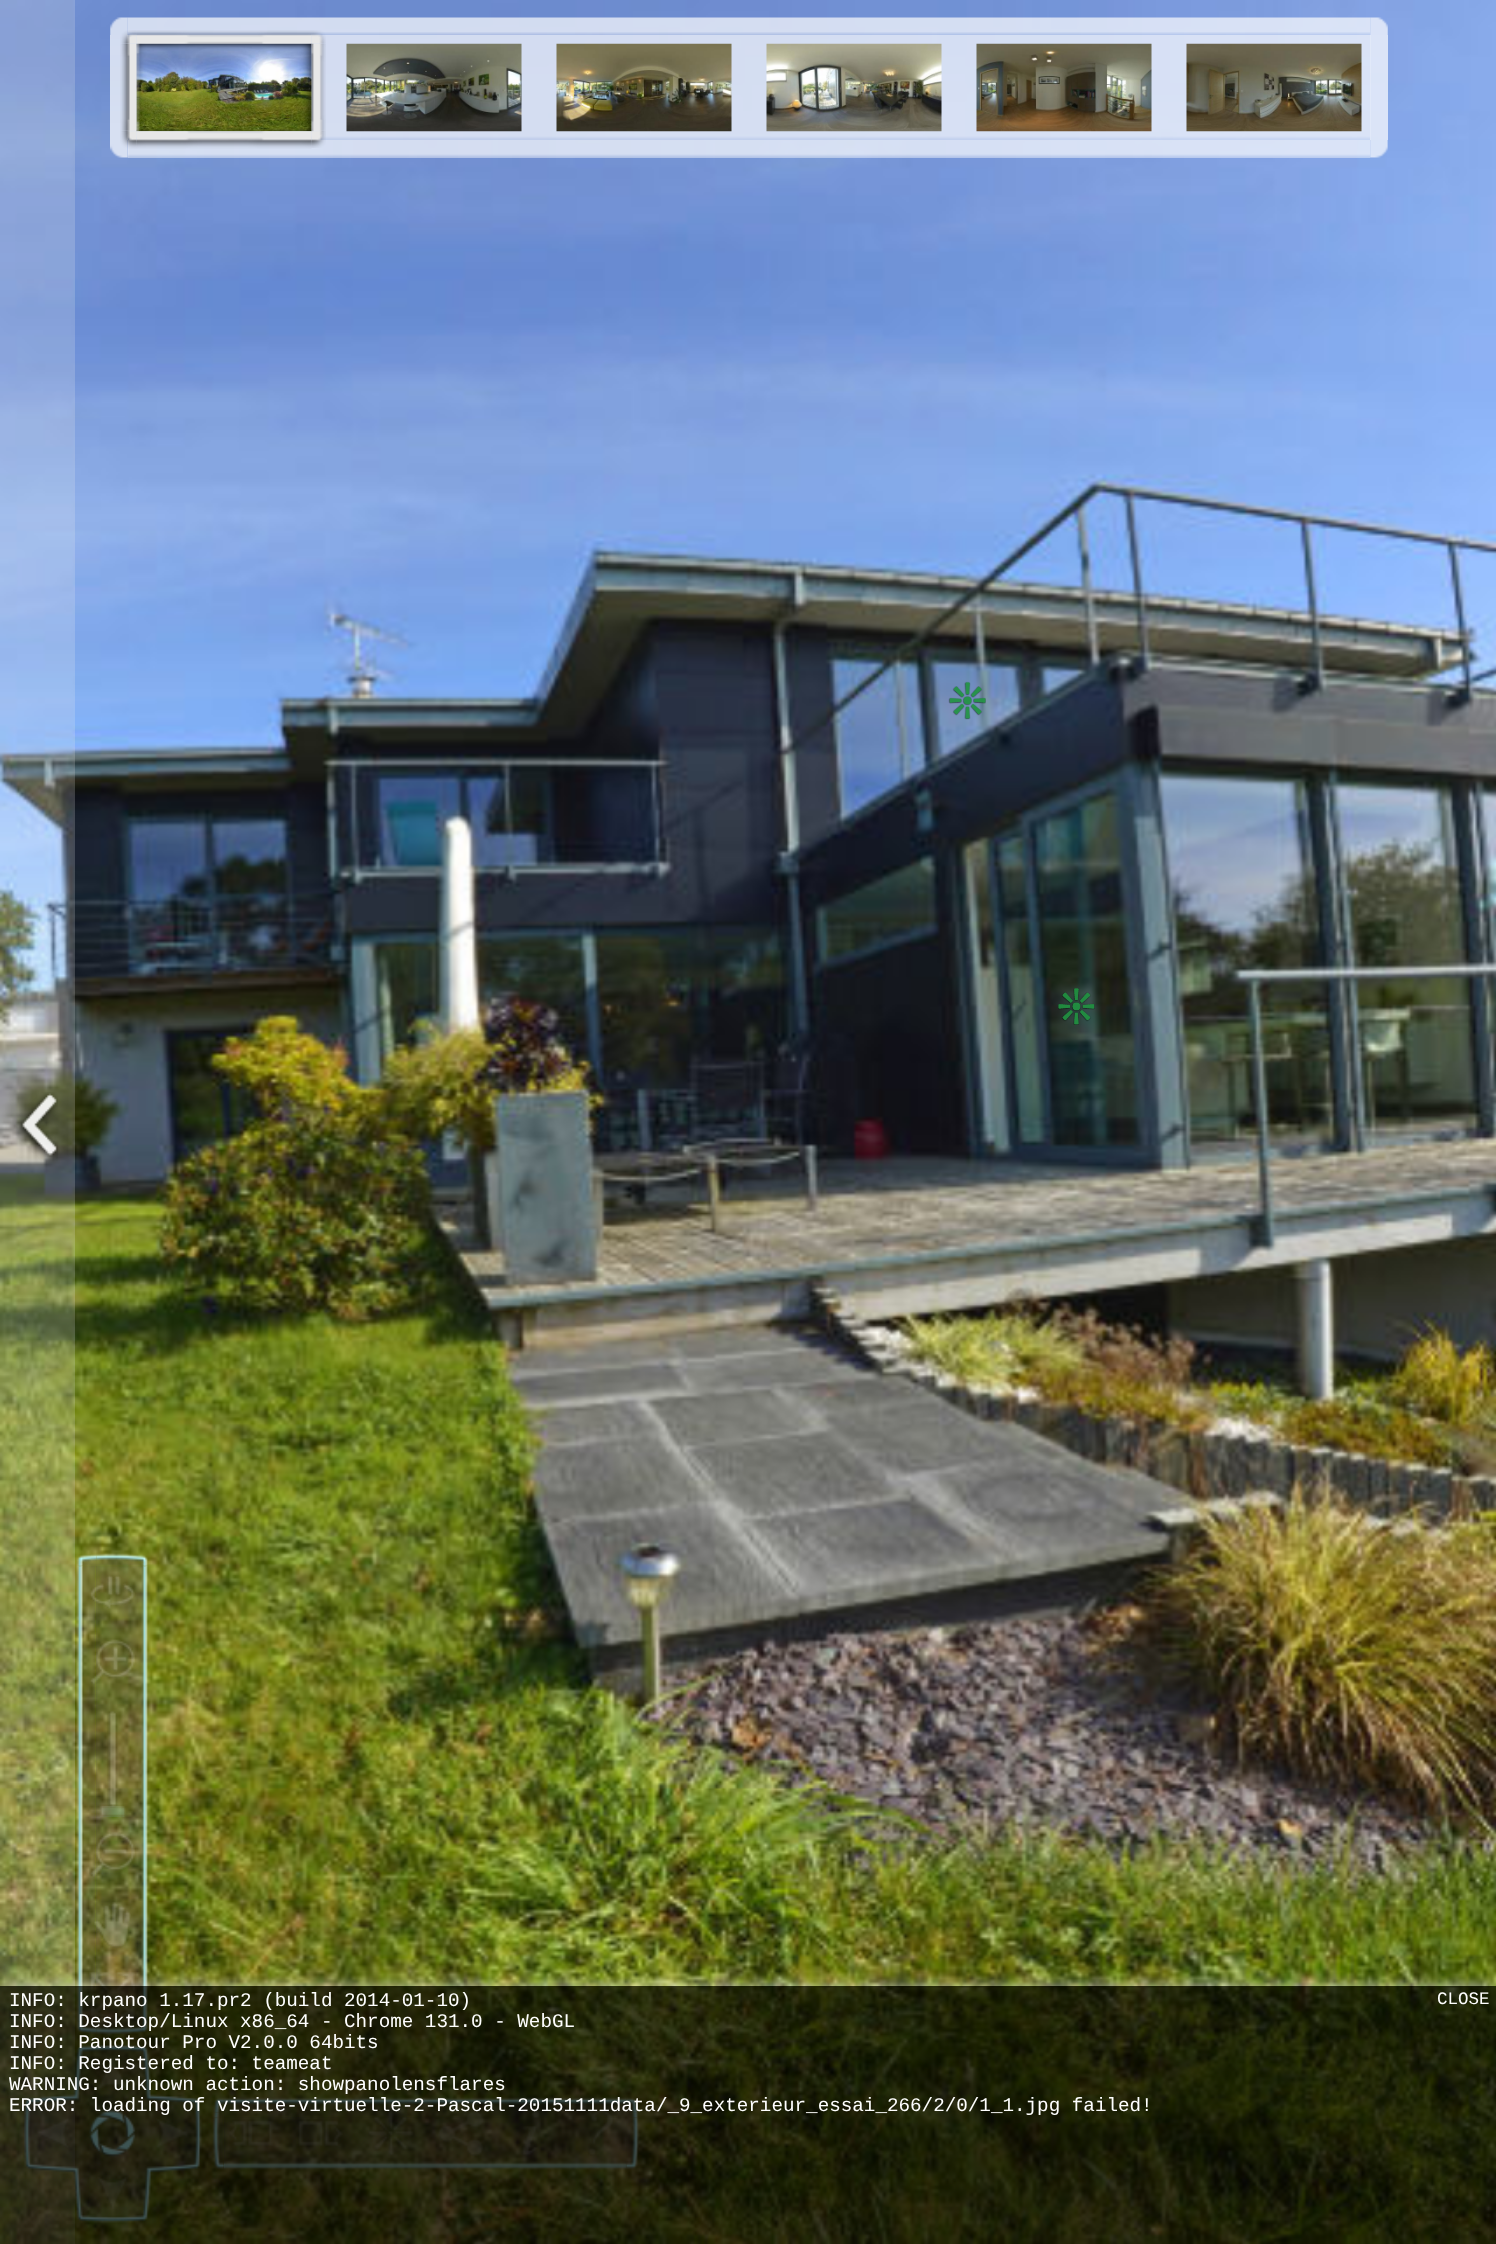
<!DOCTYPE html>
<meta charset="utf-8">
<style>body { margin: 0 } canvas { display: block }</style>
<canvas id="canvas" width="1496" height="2244"></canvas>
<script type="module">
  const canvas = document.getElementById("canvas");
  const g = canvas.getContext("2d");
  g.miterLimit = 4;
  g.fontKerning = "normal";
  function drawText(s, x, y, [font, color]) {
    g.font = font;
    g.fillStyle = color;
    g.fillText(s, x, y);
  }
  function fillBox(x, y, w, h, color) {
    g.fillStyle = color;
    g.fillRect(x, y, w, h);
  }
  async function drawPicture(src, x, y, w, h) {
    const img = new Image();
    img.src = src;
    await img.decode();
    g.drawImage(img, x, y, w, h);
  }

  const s1 = ["19.25px Liberation Mono", "#FFFFFF"];
  const s2 = ["17.5px Liberation Mono", "#FFFFFF"];

  fillBox(0, 0, 1496, 2244, "#FFFFFF");
  await drawPicture("pic1.png", 0, 0, 1496, 2244);
  fillBox(0, 0, 75, 2244, "rgba(238, 238, 238, 0.2)");
  await drawPicture("pic2.png", 16, 1092, 42, 69);
  await drawPicture("pic3.png", 110, 17, 18, 18);
  await drawPicture("pic4.png", 127, 17, 1244, 18);
  await drawPicture("pic5.png", 1370, 17, 18, 18);
  fillBox(110, 35, 18, 105, "rgba(255, 255, 255, 0.7)");
  await drawPicture("pic21.png", 127, 35, 1244, 105);
  await drawPicture("pic6.png", 136, 43, 176, 89);
  await drawPicture("pic7.png", 120, 30, 17, 15);
  await drawPicture("pic8.png", 136, 30, 176, 14);
  await drawPicture("pic9.png", 311, 30, 15, 15);
  await drawPicture("pic10.png", 120, 43, 17, 89);
  await drawPicture("pic11.png", 136, 43, 176, 89);
  await drawPicture("pic12.png", 311, 43, 15, 89);
  await drawPicture("pic22.png", 110, 140, 19, 18);
  await drawPicture("pic23.png", 127, 140, 1244, 18);
  await drawPicture("pic13.png", 120, 131, 17, 18);
  await drawPicture("pic14.png", 136, 131, 176, 18);
  await drawPicture("pic15.png", 311, 131, 15, 17);
  await drawPicture("pic16.png", 346, 43, 176, 89);
  await drawPicture("pic17.png", 556, 43, 176, 89);
  await drawPicture("pic18.png", 766, 43, 176, 89);
  await drawPicture("pic19.png", 976, 43, 176, 89);
  await drawPicture("pic20.png", 1186, 43, 176, 89);
  fillBox(1370, 35, 18, 105, "rgba(255, 255, 255, 0.7)");
  await drawPicture("pic24.png", 1370, 140, 18, 18);
  await drawPicture("pic25.png", 948, 681, 38, 39);
  await drawPicture("pic26.png", 1058, 988, 37, 37);
  await drawPicture("pic42.png", 80, 1558, 11, 9);
  await drawPicture("pic45.png", 80, 1566, 11, 456);
  await drawPicture("pic27.png", 76, 1554, 15, 13);
  await drawPicture("pic43.png", 91, 1558, 6, 9);
  await drawPicture("pic44.png", 96, 1557, 48, 10);
  await drawPicture("pic28.png", 91, 1554, 6, 7);
  await drawPicture("pic46.png", 91, 1566, 6, 456);
  await drawPicture("pic47.png", 96, 1566, 48, 456);
  await drawPicture("pic29.png", 96, 1553, 52, 14);
  await drawPicture("pic48.png", 80, 2021, 11, 9);
  await drawPicture("pic30.png", 76, 1566, 7, 456);
  await drawPicture("pic31.png", 90, 1575, 45, 34);
  await drawPicture("pic49.png", 91, 2021, 6, 9);
  await drawPicture("pic50.png", 96, 2021, 48, 10);
  await drawPicture("pic32.png", 141, 1566, 7, 456);
  await drawPicture("pic33.png", 90, 1639, 45, 46);
  await drawPicture("pic34.png", 107, 1711, 11, 97);
  await drawPicture("pic35.png", 99, 1806, 27, 11);
  await drawPicture("pic36.png", 90, 1832, 45, 45);
  await drawPicture("pic37.png", 94, 1902, 37, 46);
  await drawPicture("pic38.png", 89, 1972, 46, 46);
  await drawPicture("pic39.png", 76, 2021, 15, 13);
  await drawPicture("pic40.png", 91, 2027, 6, 7);
  await drawPicture("pic41.png", 96, 2021, 52, 14);
  await drawPicture("pic57.png", 26, 2047, 172, 173);
  await drawPicture("pic51.png", 24, 2045, 178, 178);
  await drawPicture("pic52.png", 97, 2058, 31, 32);
  await drawPicture("pic53.png", 37, 2118, 32, 30);
  await drawPicture("pic54.png", 89, 2110, 47, 47);
  await drawPicture("pic55.png", 156, 2118, 32, 30);
  await drawPicture("pic56.png", 97, 2177, 31, 32);
  await drawPicture("pic72.png", 217, 2101, 8, 12);
  await drawPicture("pic73.png", 224, 2101, 403, 12);
  await drawPicture("pic75.png", 217, 2112, 8, 6);
  await drawPicture("pic74.png", 626, 2101, 8, 12);
  await drawPicture("pic76.png", 224, 2112, 403, 6);
  await drawPicture("pic58.png", 212, 2097, 13, 16);
  await drawPicture("pic59.png", 223, 2097, 404, 8);
  await drawPicture("pic77.png", 626, 2112, 9, 6);
  await drawPicture("pic60.png", 626, 2097, 12, 16);
  await drawPicture("pic78.png", 216, 2117, 9, 48);
  await drawPicture("pic61.png", 212, 2112, 8, 7);
  await drawPicture("pic79.png", 224, 2117, 403, 48);
  await drawPicture("pic62.png", 368, 2110, 46, 46);
  await drawPicture("pic63.png", 438, 2110, 46, 46);
  await drawPicture("pic64.png", 521, 2110, 19, 46);
  await drawPicture("pic65.png", 588, 2110, 25, 46);
  await drawPicture("pic80.png", 626, 2117, 10, 48);
  await drawPicture("pic66.png", 631, 2112, 8, 7);
  await drawPicture("pic67.png", 212, 2117, 13, 53);
  await drawPicture("pic68.png", 228, 2120, 46, 26);
  await drawPicture("pic69.png", 298, 2120, 45, 26);
  await drawPicture("pic71.png", 224, 2161, 403, 9);
  await drawPicture("pic70.png", 626, 2117, 14, 53);
  g.save();
  g.beginPath();
  g.moveTo(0, 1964);
  g.lineTo(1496, 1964);
  g.lineTo(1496, 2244);
  g.lineTo(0, 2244);
  g.closePath();
  g.moveTo(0, 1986);
  g.lineTo(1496, 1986);
  g.lineTo(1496, 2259);
  g.lineTo(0, 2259);
  g.closePath();
  g.clip("evenodd");
  g.fillStyle = "rgba(255, 255, 255, 0.67)";
  g.filter = "blur(7px)";
  g.beginPath();
  g.rect(0, 1986, 1496, 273);
  g.fill();
  g.filter = "none";
  g.restore();
  fillBox(0, 1986, 1496, 258, "rgba(0, 0, 0, 0.67)");
  drawText("INFO: krpano 1.17.pr2 (build 2014-01-10)", 9, 2006, s1);
  drawText("INFO: Desktop/Linux x86_64 - Chrome 131.0 - WebGL", 9, 2027, s1);
  drawText("INFO: Panotour Pro V2.0.0 64bits", 9, 2048, s1);
  drawText("INFO: Registered to: teameat", 9, 2069, s1);
  drawText("WARNING: unknown action: showpanolensflares", 9, 2090, s1);
  drawText("ERROR: loading of visite-virtuelle-2-Pascal-20151111data/_9_exterieur_essai_266/2/0/1_1.jpg failed!", 9, 2111, s1);
  drawText("CLOSE", 1437, 2004, s2);
</script>
